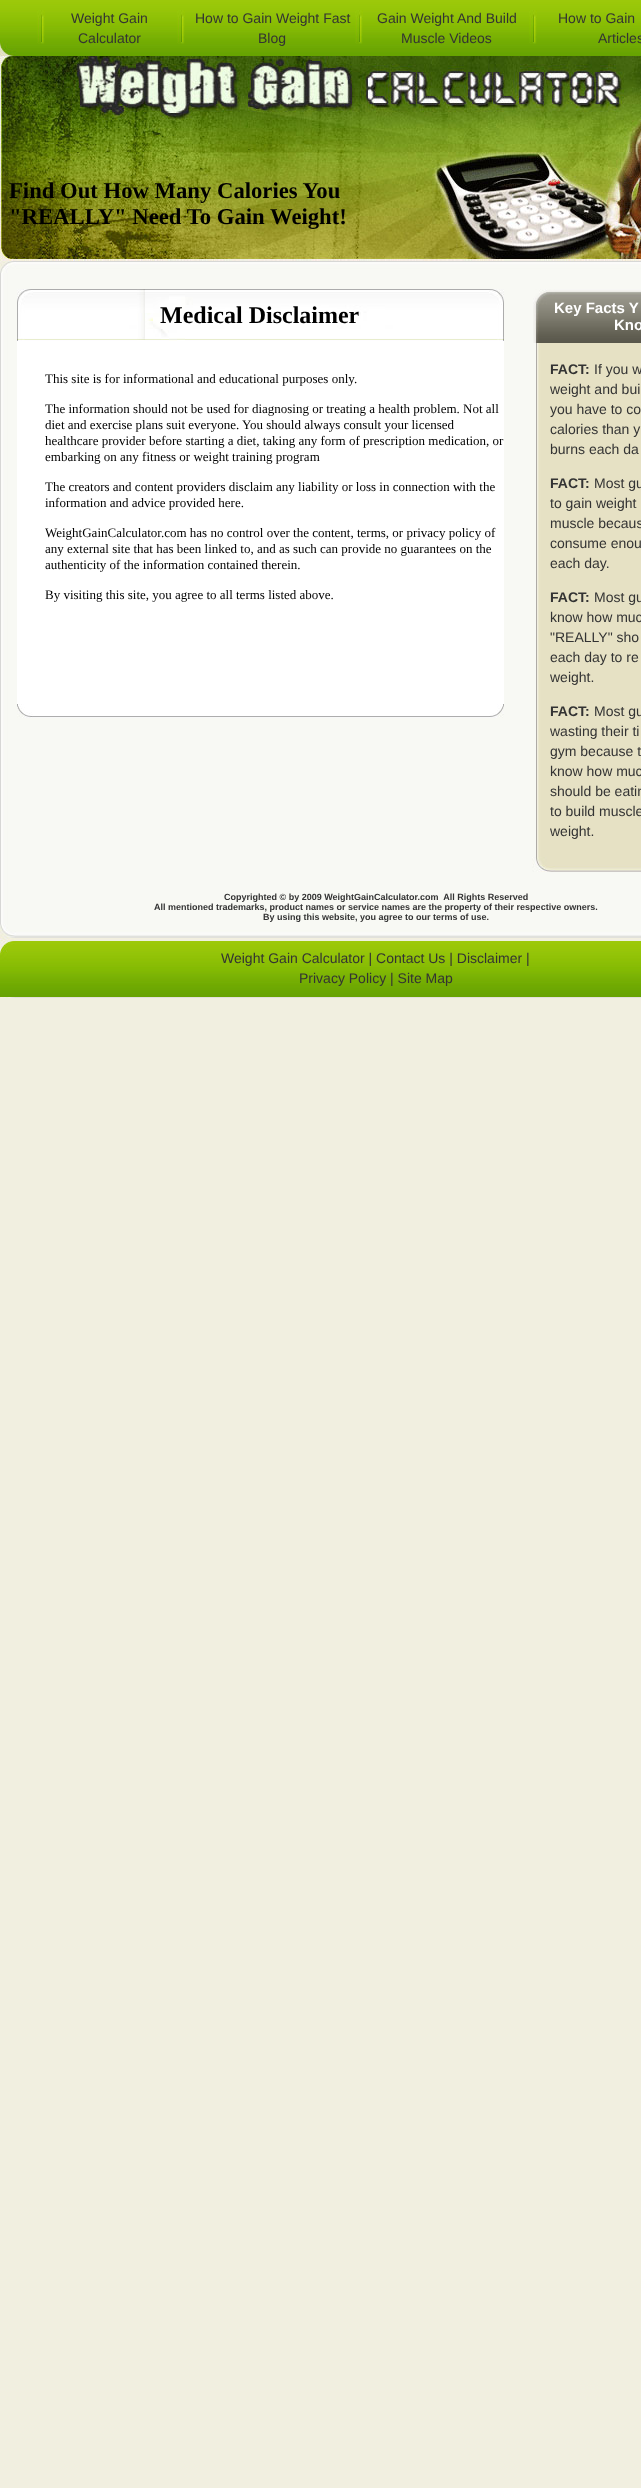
<!DOCTYPE html>
<meta charset="utf-8">
<style>body { margin: 0 } canvas { display: block }</style>
<canvas id="canvas" width="641" height="2488"></canvas>
<script type="module">
  const canvas = document.getElementById("canvas");
  const g = canvas.getContext("2d");
  g.miterLimit = 4;
  g.fontKerning = "normal";
  function drawText(s, x, y, [font, color]) {
    g.font = font;
    g.fillStyle = color;
    g.fillText(s, x, y);
  }
  function fillBox(x, y, w, h, color) {
    g.fillStyle = color;
    g.fillRect(x, y, w, h);
  }
  async function drawPicture(src, x, y, w, h) {
    const img = new Image();
    img.src = src;
    await img.decode();
    g.drawImage(img, x, y, w, h);
  }

  const s1 = ["14px Liberation Sans", "#333333"];
  const s2 = ["bold 22.7px Liberation Serif", "#000000"];
  const s3 = ["bold 24px Liberation Serif", "#000000"];
  const s4 = ["13px Liberation Serif", "#000000"];
  const s5 = ["bold 15px Liberation Sans", "#FFFFFF"];
  const s6 = ["bold 14px Liberation Sans", "#333333"];
  const s7 = ["bold 9px Liberation Sans", "#333333"];

  fillBox(0, 0, 641, 2488, "#F1EFE0");
  await drawPicture("pic1.png", 0, 0, 641, 56);
  await drawPicture("pic2.png", 37, 10, 8, 34);
  drawText("Weight Gain", 71, 23, s1);
  drawText("Calculator", 78, 43, s1);
  await drawPicture("pic2.png", 177, 10, 8, 34);
  drawText("How to Gain Weight Fast", 195, 23, s1);
  drawText("Blog", 258, 43, s1);
  await drawPicture("pic2.png", 355, 10, 8, 34);
  drawText("Gain Weight And Build", 377, 23, s1);
  drawText("Muscle Videos", 401, 43, s1);
  await drawPicture("pic2.png", 529, 10, 8, 34);
  drawText("How to Gain", 558, 23, s1);
  drawText("Articles", 598, 43, s1);
  await drawPicture("pic3.png", 0, 273, 641, 651);
  await drawPicture("pic4.png", 0, 56, 641, 205);
  drawText("Find Out How Many Calories You", 9, 198, s2);
  drawText("\"REALLY\" Need To Gain Weight!", 9, 224, s2);
  await drawPicture("pic5.png", 0, 261, 641, 12);
  fillBox(17, 341, 487, 363, "#FFFFFF");
  await drawPicture("pic6.png", 17, 289, 487, 52);
  drawText("Medical Disclaimer", 160, 323, s3);
  drawText("This site is for informational and educational purposes only.", 45, 383, s4);
  drawText("The information should not be used for diagnosing or treating a health problem. Not all", 45, 413, s4);
  drawText("diet and exercise plans suit everyone. You should always consult your licensed", 45, 429, s4);
  drawText("healthcare provider before starting a diet, taking any form of prescription medication, or", 45, 445, s4);
  drawText("embarking on any fitness or weight training program", 45, 461, s4);
  drawText("The creators and content providers disclaim any liability or loss in connection with the", 45, 491, s4);
  drawText("information and advice provided here.", 45, 507, s4);
  drawText("WeightGainCalculator.com has no control over the content, terms, or privacy policy of", 45, 537, s4);
  drawText("any external site that has been linked to, and as such can provide no guarantees on the", 45, 553, s4);
  drawText("authenticity of the information contained therein.", 45, 569, s4);
  drawText("By visiting this site, you agree to all terms listed above.", 45, 599, s4);
  await drawPicture("pic7.png", 17, 704, 487, 14);
  await drawPicture("pic8.png", 536, 343, 105, 514);
  await drawPicture("pic9.png", 533, 289, 108, 54);
  drawText("Key Facts Y", 554, 313, s5);
  drawText("Kno", 614, 330, s5);
  drawText("FACT:", 550, 374, s6);
  drawText("If you w", 594, 374, s1);
  drawText("weight and bui", 550, 394, s1);
  drawText("you have to co", 550, 414, s1);
  drawText("calories than y", 550, 434, s1);
  drawText("burns each da", 550, 454, s1);
  drawText("FACT:", 550, 488, s6);
  drawText("Most gu", 594, 488, s1);
  drawText("to gain weight", 550, 508, s1);
  drawText("muscle becaus", 550, 528, s1);
  drawText("consume enou", 550, 548, s1);
  drawText("each day.", 550, 568, s1);
  drawText("FACT:", 550, 602, s6);
  drawText("Most gu", 594, 602, s1);
  drawText("know how muc", 550, 622, s1);
  drawText("\"REALLY\" sho", 550, 642, s1);
  drawText("each day to re", 550, 662, s1);
  drawText("weight.", 550, 682, s1);
  drawText("FACT:", 550, 716, s6);
  drawText("Most gu", 594, 716, s1);
  drawText("wasting their ti", 550, 736, s1);
  drawText("gym because t", 550, 756, s1);
  drawText("know how muc", 550, 776, s1);
  drawText("should be eatin", 550, 796, s1);
  drawText("to build muscle", 550, 816, s1);
  drawText("weight.", 550, 836, s1);
  await drawPicture("pic10.png", 532, 857, 109, 15);
  drawText("Copyrighted © by 2009 WeightGainCalculator.com  All Rights Reserved", 224, 900, s7);
  drawText("All mentioned trademarks, product names or service names are the property of their respective owners.", 154, 910, s7);
  drawText("By using this website, you agree to our terms of use.", 263, 920, s7);
  await drawPicture("pic11.png", 0, 924, 641, 13);
  await drawPicture("pic12.png", 0, 937, 641, 61);
  drawText("Weight Gain Calculator | Contact Us | Disclaimer |", 221, 963, s1);
  drawText("Privacy Policy | Site Map", 299, 983, s1);
</script>
